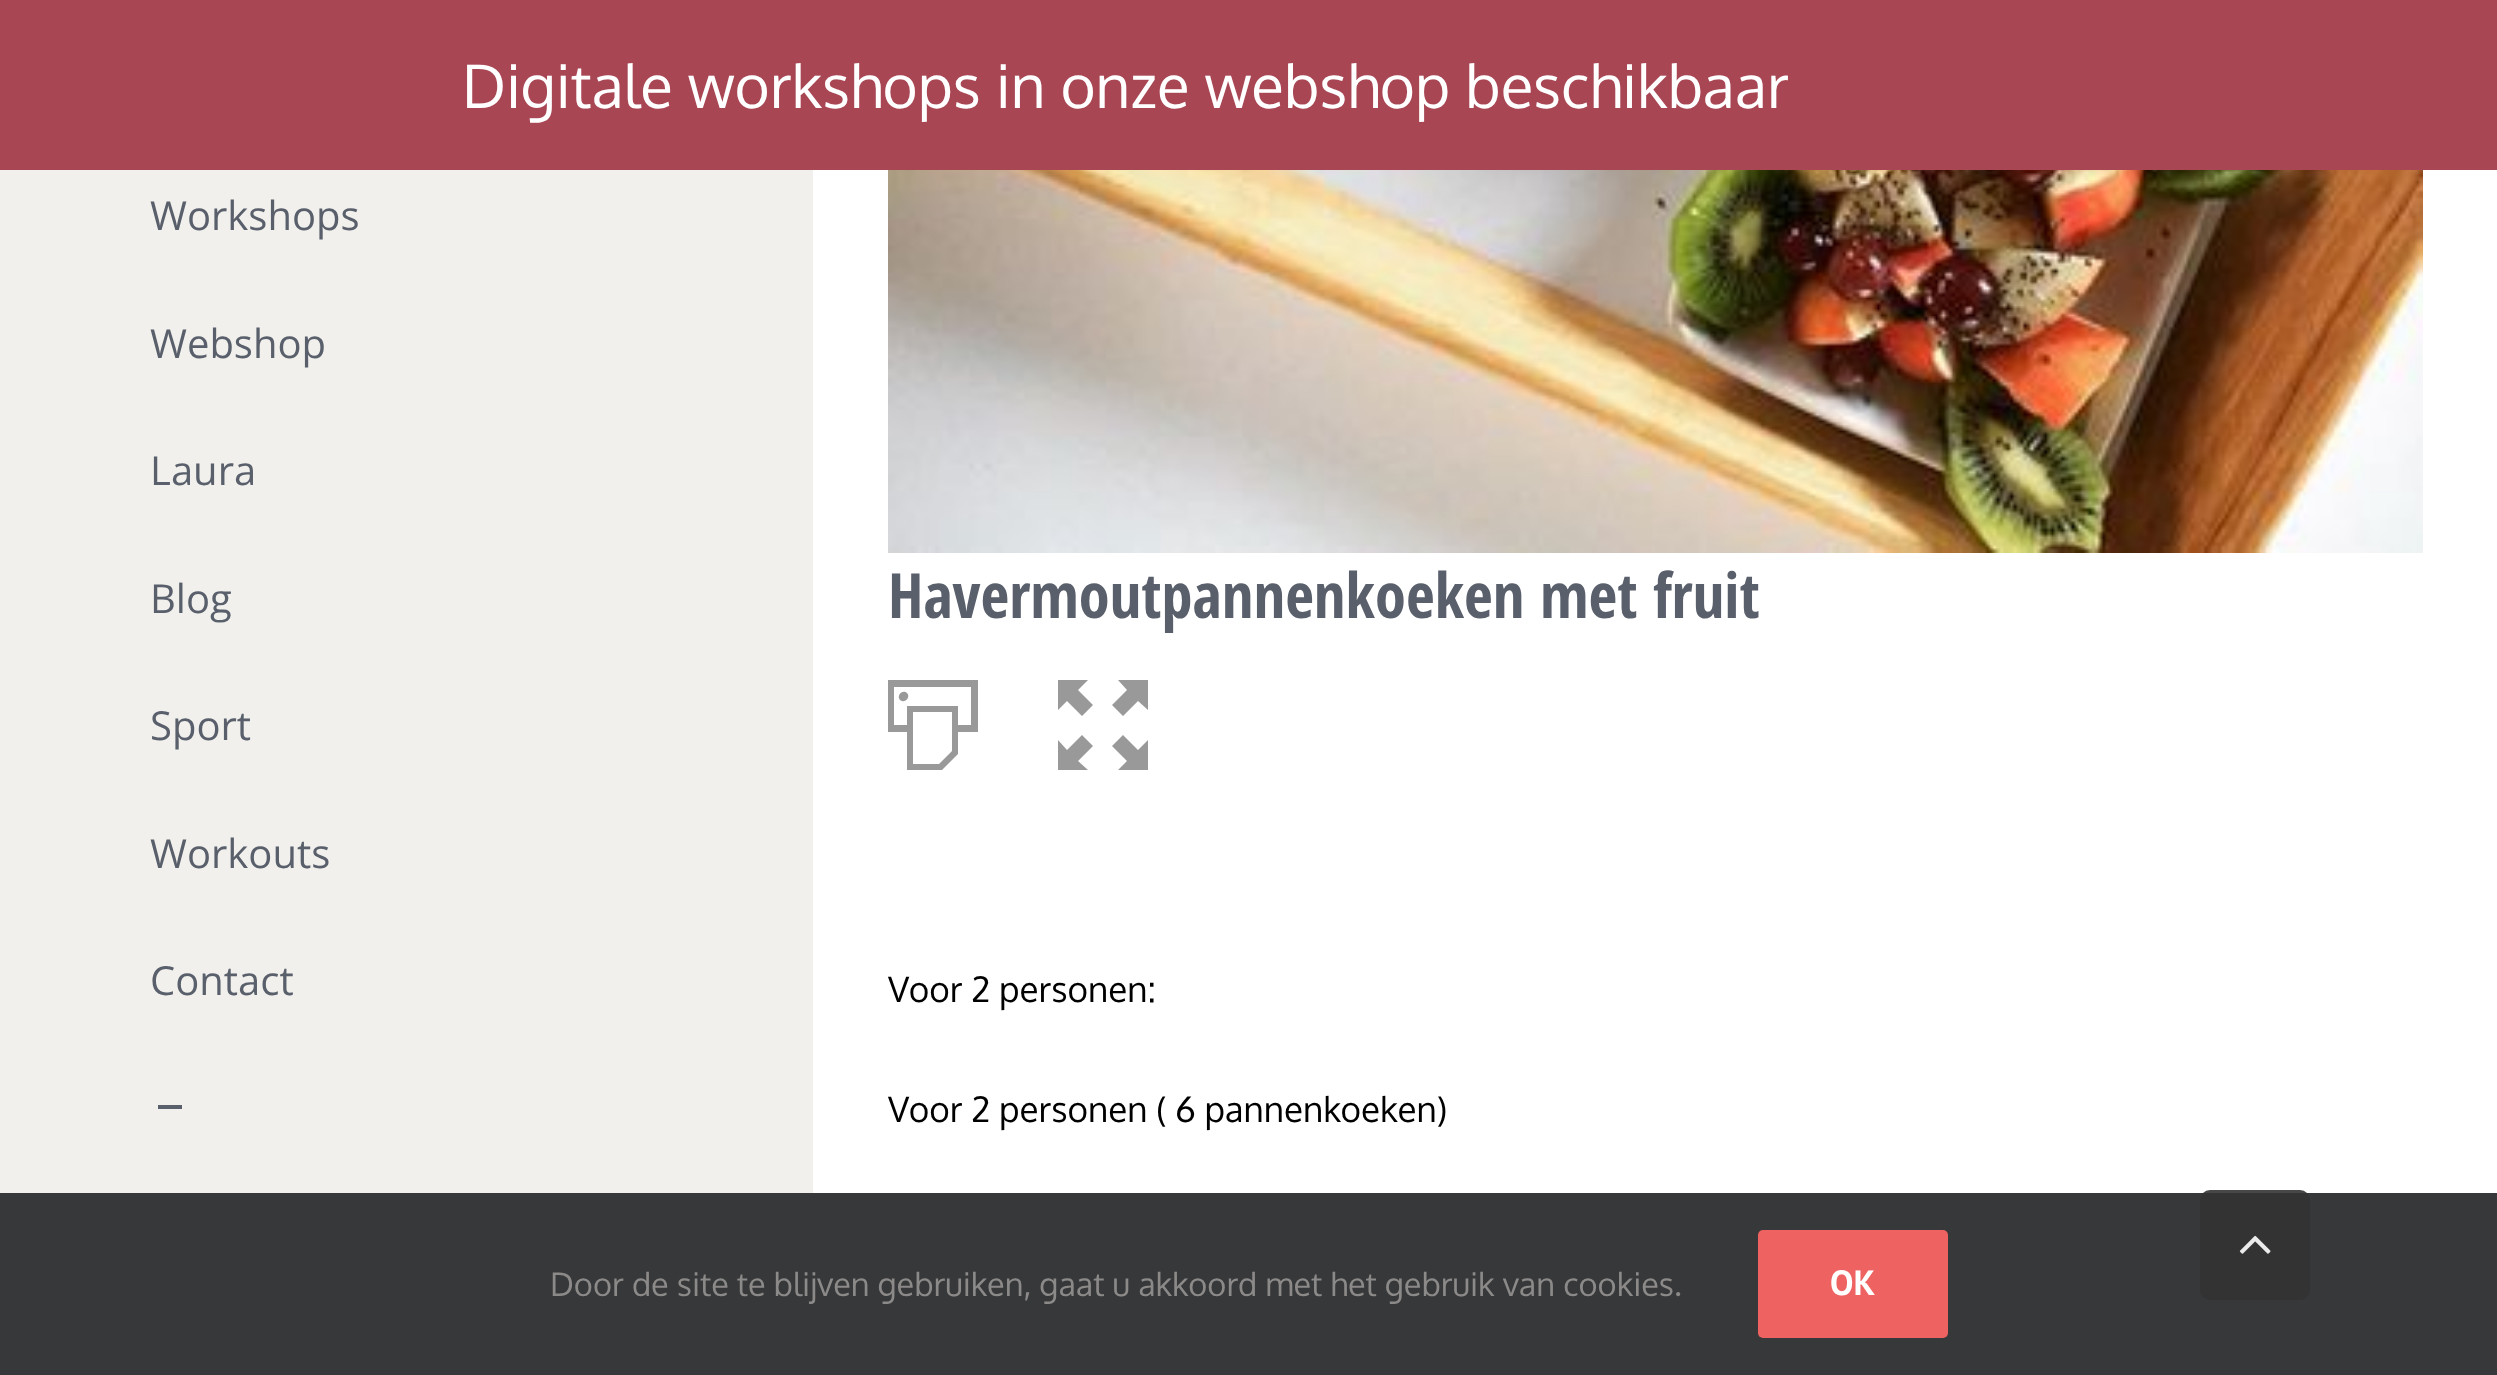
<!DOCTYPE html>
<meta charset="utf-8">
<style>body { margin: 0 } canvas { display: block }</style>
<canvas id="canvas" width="2497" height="1375"></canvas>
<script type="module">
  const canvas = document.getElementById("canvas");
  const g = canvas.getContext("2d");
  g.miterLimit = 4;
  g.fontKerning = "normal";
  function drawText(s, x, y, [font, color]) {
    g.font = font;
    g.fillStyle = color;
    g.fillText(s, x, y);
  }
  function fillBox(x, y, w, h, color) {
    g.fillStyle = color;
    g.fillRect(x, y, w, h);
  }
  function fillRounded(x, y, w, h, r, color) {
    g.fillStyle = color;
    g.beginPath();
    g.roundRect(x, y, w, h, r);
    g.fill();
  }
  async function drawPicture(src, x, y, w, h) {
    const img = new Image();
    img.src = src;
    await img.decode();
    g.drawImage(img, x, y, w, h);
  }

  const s1 = ["60px Oxygen", "#FFFFFF"];
  const s2 = ["40px Open Sans", "#595F6B"];
  const s3 = ["bold 62.5px Open Sans Condensed", "#595F6B"];
  const s4 = ["35px Oxygen", "#000000"];
  const s5 = ["32.5px Oxygen", "#8C8989"];
  const s6 = ["bold 35px PT Sans", "#FFFFFF"];

  fillBox(0, 0, 2497, 1375, "#FFFFFF");
  fillBox(0, 0, 2497, 170, "#A84654");
  drawText("Digitale workshops in onze webshop beschikbaar", 462, 108, s1);
  fillBox(0, 170, 813, 1023, "#F1F0EC");
  drawText("Workshops", 150, 230, s2);
  drawText("Webshop", 150, 358, s2);
  drawText("Laura", 150, 485, s2);
  drawText("Blog", 150, 613, s2);
  drawText("Sport", 150, 740, s2);
  drawText("Workouts", 150, 868, s2);
  drawText("Contact", 150, 995, s2);
  fillBox(158, 1105, 24, 4, "#595F6B");
  await drawPicture("pic1.png", 888, 170, 1535, 383);
  drawText("Havermoutpannenkoeken met fruit", 888, 618, s3);
  g.fillStyle = "#999999";
  g.beginPath();
  g.moveTo(888, 680);
  g.lineTo(978, 680);
  g.lineTo(978, 732);
  g.lineTo(958, 732);
  g.lineTo(958, 754);
  g.lineTo(942, 770);
  g.lineTo(907, 770);
  g.lineTo(907, 732);
  g.lineTo(888, 732);
  g.closePath();
  g.moveTo(952, 751);
  g.lineTo(952, 712);
  g.lineTo(913, 712);
  g.lineTo(913, 764);
  g.lineTo(939, 764);
  g.closePath();
  g.moveTo(971, 725);
  g.lineTo(971, 687);
  g.lineTo(894, 687);
  g.lineTo(894, 725);
  g.lineTo(907, 725);
  g.lineTo(907, 706);
  g.lineTo(958, 706);
  g.lineTo(958, 725);
  g.closePath();
  g.moveTo(907, 693);
  g.bezierCurveTo(911, 697, 905, 704, 900, 700);
  g.bezierCurveTo(896, 695, 903, 689, 907, 693);
  g.closePath();
  g.fill();
  g.beginPath();
  g.moveTo(1058, 770);
  g.lineTo(1058, 740);
  g.lineTo(1067, 750);
  g.lineTo(1082, 735);
  g.lineTo(1093, 746);
  g.lineTo(1078, 761);
  g.lineTo(1088, 770);
  g.closePath();
  g.moveTo(1058, 710);
  g.lineTo(1058, 680);
  g.lineTo(1088, 680);
  g.lineTo(1078, 690);
  g.lineTo(1093, 705);
  g.lineTo(1082, 716);
  g.lineTo(1067, 701);
  g.closePath();
  g.moveTo(1112, 746);
  g.lineTo(1123, 735);
  g.lineTo(1138, 750);
  g.lineTo(1148, 740);
  g.lineTo(1148, 770);
  g.lineTo(1118, 770);
  g.lineTo(1127, 761);
  g.closePath();
  g.moveTo(1112, 705);
  g.lineTo(1127, 690);
  g.lineTo(1118, 680);
  g.lineTo(1148, 680);
  g.lineTo(1148, 710);
  g.lineTo(1138, 701);
  g.lineTo(1123, 716);
  g.closePath();
  g.fill();
  drawText("Voor 2 personen:", 888, 1002, s4);
  drawText("Voor 2 personen ( 6 pannenkoeken)", 888, 1122, s4);
  fillBox(0, 1193, 2497, 182, "#363839");
  drawText("Door de site te blijven gebruiken, gaat u akkoord met het gebruik van cookies.", 550, 1296, s5);
  fillRounded(1758, 1230, 190, 108, 5, "#EF6262");
  drawText("OK", 1830, 1295, s6);
  fillRounded(2200, 1190, 110, 110, 10, "rgba(51, 51, 51, 0.9)");
  await drawPicture("pic2.png", 2239, 1235, 32, 19);
</script>
